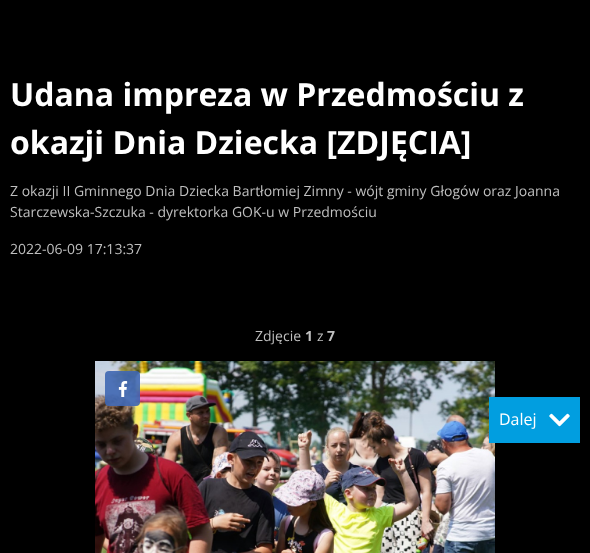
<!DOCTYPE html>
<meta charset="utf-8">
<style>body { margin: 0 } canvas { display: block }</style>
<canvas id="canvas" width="590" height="553"></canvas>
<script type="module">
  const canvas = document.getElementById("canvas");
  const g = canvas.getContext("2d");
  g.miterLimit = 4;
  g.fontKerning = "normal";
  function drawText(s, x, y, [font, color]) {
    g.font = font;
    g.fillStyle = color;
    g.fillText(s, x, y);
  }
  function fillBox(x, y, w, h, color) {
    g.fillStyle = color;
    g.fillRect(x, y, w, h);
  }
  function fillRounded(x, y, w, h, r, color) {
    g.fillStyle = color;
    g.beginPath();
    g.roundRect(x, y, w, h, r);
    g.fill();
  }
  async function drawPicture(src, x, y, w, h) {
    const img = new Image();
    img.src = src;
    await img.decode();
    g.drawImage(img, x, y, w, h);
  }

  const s1 = ["bold 32px Open Sans", "#FFFFFF"];
  const s2 = ["14px Open Sans", "#BFBFBF"];
  const s3 = ["bold 14px Open Sans", "#BFBFBF"];
  const s4 = ["16px Open Sans", "#FFFFFF"];

  fillBox(0, 0, 590, 553, "#000000");
  drawText("Udana impreza w Przedmościu z", 10, 106, s1);
  drawText("okazji Dnia Dziecka [ZDJĘCIA]", 10, 154, s1);
  drawText("Z okazji II Gminnego Dnia Dziecka Bartłomiej Zimny - wójt gminy Głogów oraz Joanna", 10, 196, s2);
  drawText("Starczewska-Szczuka - dyrektorka GOK-u w Przedmościu", 10, 217, s2);
  drawText("2022-06-09 17:13:37", 10, 254, s2);
  drawText("Zdjęcie", 255, 341, s2);
  drawText("1", 305, 341, s3);
  drawText("z", 317, 341, s2);
  drawText("7", 327, 341, s3);
  await drawPicture("pic1.png", 95, 361, 400, 192);
  fillRounded(105, 371, 35, 35, 4, "rgba(63, 103, 178, 0.9)");
  await drawPicture("pic2.png", 118, 381, 10, 16);
  fillBox(489, 397, 91, 46, "#019EE0");
  drawText("Dalej", 499, 425, s4);
  await drawPicture("pic3.png", 549, 413, 21, 14);
</script>
